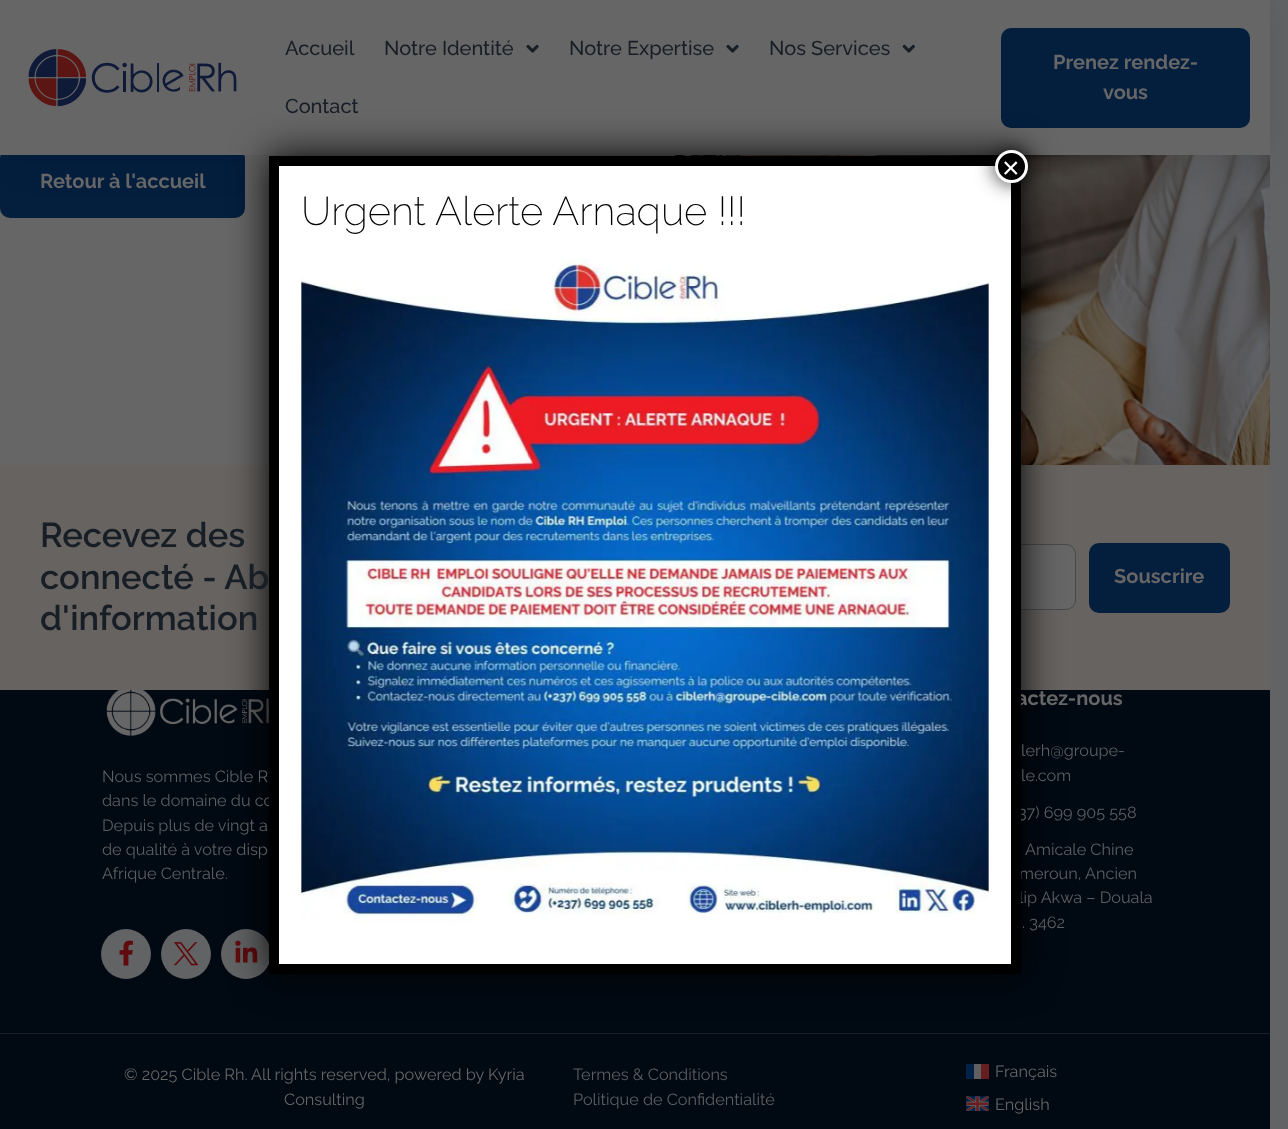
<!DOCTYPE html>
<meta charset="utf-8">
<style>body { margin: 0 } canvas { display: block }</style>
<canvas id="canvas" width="1288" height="1129"></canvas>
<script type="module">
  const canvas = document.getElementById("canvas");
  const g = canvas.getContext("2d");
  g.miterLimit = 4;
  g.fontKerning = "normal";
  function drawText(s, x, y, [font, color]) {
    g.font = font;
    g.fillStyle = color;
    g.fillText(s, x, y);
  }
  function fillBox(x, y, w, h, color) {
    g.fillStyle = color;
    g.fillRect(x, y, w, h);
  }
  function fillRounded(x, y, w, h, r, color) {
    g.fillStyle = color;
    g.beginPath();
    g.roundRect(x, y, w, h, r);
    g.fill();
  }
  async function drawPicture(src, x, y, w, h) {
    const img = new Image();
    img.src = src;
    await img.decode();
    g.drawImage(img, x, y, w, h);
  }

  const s1 = ["500 20px Raleway", "#181E26"];
  const s2 = ["bold 20px Raleway", "#666666"];
  const s3 = ["16.25px Raleway", "#5C5F62"];
  const s4 = ["30px Liberation Sans", "#FFFFFF"];
  const s5 = ["200 40px Raleway", "#000000"];
  const s6 = ["600 34.5px Raleway", "#181E26"];
  const s7 = ["16.25px Raleway", "#666666"];

  fillBox(0, 0, 1288, 1129, "#626364");
  fillBox(0, 155, 675, 310, "#666666");
  fillRounded(0, 148, 245, 70, 10, "#041E3E");
  await drawPicture("pic4.png", 675, 155, 595, 310);
  g.fillStyle = "rgba(0, 0, 0, 0.1)";
  g.filter = "blur(20px)";
  g.beginPath();
  g.rect(0, 0, 1270, 155);
  g.fill();
  g.filter = "none";
  fillBox(0, 0, 1270, 155, "#666666");
  await drawPicture("pic1.png", 28, 49, 209, 58);
  drawText("Accueil", 285, 55, s1);
  drawText("Notre Identité", 384, 55, s1);
  await drawPicture("pic2.png", 526, 44, 13, 9);
  drawText("Notre Expertise", 569, 55, s1);
  await drawPicture("pic2.png", 726, 44, 13, 9);
  drawText("Nos Services", 769, 55, s1);
  await drawPicture("pic3.png", 902, 44, 13, 9);
  drawText("Contact", 285, 113, s1);
  fillRounded(1001, 28, 249, 100, 10, "#041E3E");
  drawText("Prenez rendez-", 1053, 69, s2);
  drawText("vous", 1103, 99, s2);
  drawText("Retour à l'accueil", 40, 188, s2);
  fillBox(0, 465, 1270, 225, "#666360");
  g.fillStyle = "#666666";
  g.beginPath();
  g.roundRect(783.5, 544.5, 292, 65, 9.5);
  g.fill();
  g.strokeStyle = "#47494C";
  g.stroke();
  fillBox(0, 690, 1270, 343, "#010913");
  await drawPicture("pic6.png", 106, 690, 163, 46);
  g.fillStyle = "#626364";
  g.beginPath();
  g.arc(246, 954, 25, 0, Math.PI * 2);
  g.fill();
  await drawPicture("pic9.png", 235, 940, 23, 23);
  g.fillStyle = "#020202";
  g.filter = "blur(19px)";
  g.beginPath();
  g.roundRect(269, 156, 752, 818, 4);
  g.fill();
  g.filter = "none";
  fillBox(279, 166, 732, 798, "#FFFFFF");
  drawText("dans le domaine du co", 102, 806, s3);
  drawText("actez-nous", 1016, 705, s2);
  drawText("37) 699 905 558", 1018, 818, s3);
  drawText("meroun, Ancien", 1019, 879, s3);
  drawText("lip Akwa – Douala", 1019, 903, s3);
  g.beginPath();
  g.moveTo(274, 161);
  g.lineTo(1016, 161);
  g.lineTo(1016, 969);
  g.lineTo(274, 969);
  g.closePath();
  g.strokeStyle = "#000000";
  g.lineWidth = 10;
  g.stroke();
  g.fillStyle = "rgba(2, 2, 2, 0.75)";
  g.filter = "blur(9.5px)";
  g.beginPath();
  g.roundRect(994, 149, 35, 35, 17.5);
  g.fill();
  g.filter = "none";
  g.fillStyle = "#000000";
  g.beginPath();
  g.arc(1011.5, 166.5, 15, 0, Math.PI * 2);
  g.fill();
  g.strokeStyle = "#FFFFFF";
  g.lineWidth = 3;
  g.stroke();
  drawText("×", 1002, 178, s4);
  drawText("Urgent Alerte Arnaque !!!", 301, 225, s5);
  await drawPicture("pic5.png", 301, 258, 688, 665);
  drawText("Recevez des", 40, 547, s6);
  drawText("connecté - Ab", 40, 589, s6);
  drawText("d'information", 40, 630, s6);
  fillRounded(1089, 543, 141, 70, 10, "#041E3E");
  drawText("Souscrire", 1114, 583, s2);
  drawText("Nous sommes Cible R", 102, 782, s3);
  drawText("Depuis plus de vingt a", 102, 831, s3);
  drawText("de qualité à votre disp", 102, 855, s3);
  drawText("Afrique Centrale.", 102, 879, s3);
  g.fillStyle = "#626364";
  g.beginPath();
  g.arc(126, 954, 25, 0, Math.PI * 2);
  g.fill();
  await drawPicture("pic7.png", 119, 940, 14, 26);
  g.beginPath();
  g.arc(186, 954, 25, 0, Math.PI * 2);
  g.fill();
  await drawPicture("pic8.png", 174, 942, 25, 24);
  drawText("lerh@groupe-", 1021, 756, s3);
  drawText("le.com", 1021, 781, s3);
  drawText("Amicale Chine", 1025, 855, s3);
  drawText(". 3462", 1022, 928, s3);
  fillBox(0, 1034, 1270, 95, "#010913");
  fillBox(0, 1033, 1270, 1, "#181E26");
  drawText("© 2025 Cible Rh. All rights reserved, powered by Kyria", 124, 1080, s7);
  drawText("Consulting", 284, 1105, s7);
  drawText("Termes & Conditions", 573, 1080, s3);
  drawText("Politique de Confidentialité", 573, 1105, s3);
  fillBox(966, 1064, 8, 15, "#002148");
  fillBox(974, 1064, 7, 15, "#606060");
  fillBox(981, 1064, 8, 15, "#661E22");
  drawText("Français", 995, 1077, s7);
  await drawPicture("pic10.png", 966, 1096, 23, 15);
  drawText("English", 995, 1110, s7);
</script>
